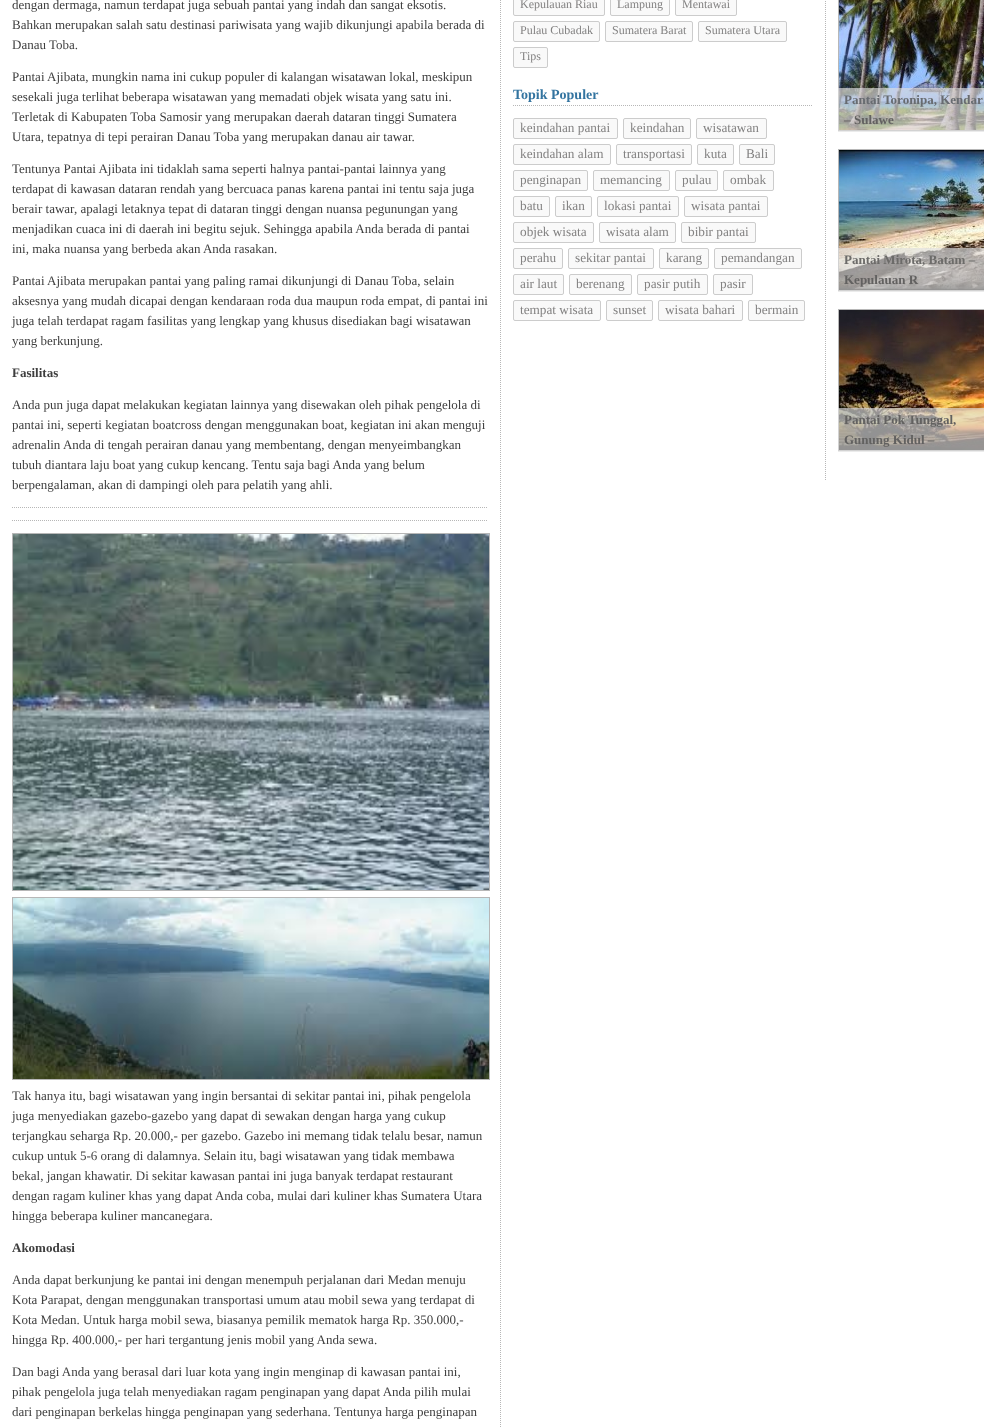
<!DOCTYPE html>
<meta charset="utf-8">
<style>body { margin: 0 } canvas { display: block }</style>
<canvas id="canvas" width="984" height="1427"></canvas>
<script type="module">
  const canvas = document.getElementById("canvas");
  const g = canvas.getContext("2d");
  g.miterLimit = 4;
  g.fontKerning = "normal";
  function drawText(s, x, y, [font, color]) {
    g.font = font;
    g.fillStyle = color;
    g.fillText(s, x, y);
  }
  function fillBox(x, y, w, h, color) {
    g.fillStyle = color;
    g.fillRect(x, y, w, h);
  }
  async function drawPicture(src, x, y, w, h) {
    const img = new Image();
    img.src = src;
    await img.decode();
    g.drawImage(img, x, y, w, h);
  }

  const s1 = ["13px Liberation Serif", "#3E3E3E"];
  const s2 = ["bold 13px Liberation Serif", "#3E3E3E"];
  const s3 = ["12px Liberation Serif", "#838282"];
  const s4 = ["bold 14px Liberation Serif", "#3374A0"];
  const s5 = ["13.25px Liberation Serif", "#838282"];
  const s6 = ["bold 13px Liberation Serif", "#676B70"];
  const s7 = ["bold 13px Liberation Serif", "#626160"];
  const s8 = ["bold 13px Liberation Serif", "#6C6B69"];

  fillBox(0, 0, 984, 1427, "#FFFFFF");
  g.beginPath();
  g.moveTo(500.5, -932);
  g.lineTo(500.5, 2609);
  g.strokeStyle = "#B7B7B7";
  g.setLineDash([1, 1]);
  g.stroke();
  drawText("dengan dermaga, namun terdapat juga sebuah pantai yang indah dan sangat eksotis.", 12, 9, s1);
  drawText("Bahkan merupakan salah satu destinasi pariwisata yang wajib dikunjungi apabila berada di", 12, 29, s1);
  drawText("Danau Toba.", 12, 49, s1);
  drawText("Pantai Ajibata, mungkin nama ini cukup populer di kalangan wisatawan lokal, meskipun", 12, 81, s1);
  drawText("sesekali juga terlihat beberapa wisatawan yang memadati objek wisata yang satu ini.", 12, 101, s1);
  drawText("Terletak di Kabupaten Toba Samosir yang merupakan daerah dataran tinggi Sumatera", 12, 121, s1);
  drawText("Utara, tepatnya di tepi perairan Danau Toba yang merupakan danau air tawar.", 12, 141, s1);
  drawText("Tentunya Pantai Ajibata ini tidaklah sama seperti halnya pantai-pantai lainnya yang", 12, 173, s1);
  drawText("terdapat di kawasan dataran rendah yang bercuaca panas karena pantai ini tentu saja juga", 12, 193, s1);
  drawText("berair tawar, apalagi letaknya tepat di dataran tinggi dengan nuansa pegunungan yang", 12, 213, s1);
  drawText("menjadikan cuaca ini di daerah ini begitu sejuk. Sehingga apabila Anda berada di pantai", 12, 233, s1);
  drawText("ini, maka nuansa yang berbeda akan Anda rasakan.", 12, 253, s1);
  drawText("Pantai Ajibata merupakan pantai yang paling ramai dikunjungi di Danau Toba, selain", 12, 285, s1);
  drawText("aksesnya yang mudah dicapai dengan kendaraan roda dua maupun roda empat, di pantai ini", 12, 305, s1);
  drawText("juga telah terdapat ragam fasilitas yang lengkap yang khusus disediakan bagi wisatawan", 12, 325, s1);
  drawText("yang berkunjung.", 12, 345, s1);
  drawText("Fasilitas", 12, 377, s2);
  drawText("Anda pun juga dapat melakukan kegiatan lainnya yang disewakan oleh pihak pengelola di", 12, 409, s1);
  drawText("pantai ini, seperti kegiatan boatcross dengan menggunakan boat, kegiatan ini akan menguji", 12, 429, s1);
  drawText("adrenalin Anda di tengah perairan danau yang membentang, dengan menyeimbangkan", 12, 449, s1);
  drawText("tubuh diantara laju boat yang cukup kencang. Tentu saja bagi Anda yang belum", 12, 469, s1);
  drawText("berpengalaman, akan di dampingi oleh para pelatih yang ahli.", 12, 489, s1);
  g.beginPath();
  g.moveTo(12, 507.5);
  g.lineTo(488, 507.5);
  g.stroke();
  g.beginPath();
  g.moveTo(12, 520.5);
  g.lineTo(488, 520.5);
  g.stroke();
  g.setLineDash([]);
  g.strokeRect(12.5, 533.5, 477, 357);
  await drawPicture("pic1.png", 13, 534, 476, 356);
  g.strokeRect(12.5, 897.5, 477, 182);
  await drawPicture("pic2.png", 13, 898, 476, 181);
  drawText("Tak hanya itu, bagi wisatawan yang ingin bersantai di sekitar pantai ini, pihak pengelola", 12, 1100, s1);
  drawText("juga menyediakan gazebo-gazebo yang dapat di sewakan dengan harga yang cukup", 12, 1120, s1);
  drawText("terjangkau seharga Rp. 20.000,- per gazebo. Gazebo ini memang tidak telalu besar, namun", 12, 1140, s1);
  drawText("cukup untuk 5-6 orang di dalamnya. Selain itu, bagi wisatawan yang tidak membawa", 12, 1160, s1);
  drawText("bekal, jangan khawatir. Di sekitar kawasan pantai ini juga banyak terdapat restaurant", 12, 1180, s1);
  drawText("dengan ragam kuliner khas yang dapat Anda coba, mulai dari kuliner khas Sumatera Utara", 12, 1200, s1);
  drawText("hingga beberapa kuliner mancanegara.", 12, 1220, s1);
  drawText("Akomodasi", 12, 1252, s2);
  drawText("Anda dapat berkunjung ke pantai ini dengan menempuh perjalanan dari Medan menuju", 12, 1284, s1);
  drawText("Kota Parapat, dengan menggunakan transportasi umum atau mobil sewa yang terdapat di", 12, 1304, s1);
  drawText("Kota Medan. Untuk harga mobil sewa, biasanya pemilik mematok harga Rp. 350.000,-", 12, 1324, s1);
  drawText("hingga Rp. 400.000,- per hari tergantung jenis mobil yang Anda sewa.", 12, 1344, s1);
  drawText("Dan bagi Anda yang berasal dari luar kota yang ingin menginap di kawasan pantai ini,", 12, 1376, s1);
  drawText("pihak pengelola juga telah menyediakan ragam penginapan yang dapat Anda pilih mulai", 12, 1396, s1);
  drawText("dari penginapan berkelas hingga penginapan yang sederhana. Tentunya harga penginapan", 12, 1416, s1);
  g.fillStyle = "#F9F9F9";
  g.beginPath();
  g.roundRect(513.5, -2.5, 91, 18, 1.5);
  g.fill();
  g.strokeStyle = "#CCCCCC";
  g.stroke();
  drawText("Kepulauan Riau", 520, 8, s3);
  g.fillStyle = "#F9F9F9";
  g.beginPath();
  g.roundRect(610.5, -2.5, 59, 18, 1.5);
  g.fill();
  g.stroke();
  drawText("Lampung", 617, 8, s3);
  g.fillStyle = "#F9F9F9";
  g.beginPath();
  g.roundRect(675.5, -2.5, 61, 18, 1.5);
  g.fill();
  g.stroke();
  drawText("Mentawai", 682, 8, s3);
  g.fillStyle = "#F9F9F9";
  g.beginPath();
  g.roundRect(513.5, 21.5, 86, 20, 1.5);
  g.fill();
  g.stroke();
  drawText("Pulau Cubadak", 520, 34, s3);
  g.fillStyle = "#F9F9F9";
  g.beginPath();
  g.roundRect(605.5, 21.5, 87, 20, 1.5);
  g.fill();
  g.stroke();
  drawText("Sumatera Barat", 612, 34, s3);
  g.fillStyle = "#F9F9F9";
  g.beginPath();
  g.roundRect(698.5, 21.5, 88, 20, 1.5);
  g.fill();
  g.stroke();
  drawText("Sumatera Utara", 705, 34, s3);
  g.fillStyle = "#F9F9F9";
  g.beginPath();
  g.roundRect(513.5, 47.5, 34, 20, 1.5);
  g.fill();
  g.stroke();
  drawText("Tips", 520, 60, s3);
  g.beginPath();
  g.moveTo(513, 105.5);
  g.lineTo(813, 105.5);
  g.strokeStyle = "#B7B7B7";
  g.setLineDash([1, 1]);
  g.stroke();
  drawText("Topik Populer", 513, 99, s4);
  g.fillStyle = "#F9F9F9";
  g.beginPath();
  g.roundRect(513.5, 118.5, 104, 20, 1.5);
  g.fill();
  g.strokeStyle = "#CCCCCC";
  g.setLineDash([]);
  g.stroke();
  drawText("keindahan pantai", 520, 132, s5);
  g.fillStyle = "#F9F9F9";
  g.beginPath();
  g.roundRect(623.5, 118.5, 67, 20, 1.5);
  g.fill();
  g.stroke();
  drawText("keindahan", 630, 132, s5);
  g.fillStyle = "#F9F9F9";
  g.beginPath();
  g.roundRect(696.5, 118.5, 70, 20, 1.5);
  g.fill();
  g.stroke();
  drawText("wisatawan", 703, 132, s5);
  g.fillStyle = "#F9F9F9";
  g.beginPath();
  g.roundRect(513.5, 144.5, 97, 20, 1.5);
  g.fill();
  g.stroke();
  drawText("keindahan alam", 520, 158, s5);
  g.fillStyle = "#F9F9F9";
  g.beginPath();
  g.roundRect(616.5, 144.5, 75, 20, 1.5);
  g.fill();
  g.stroke();
  drawText("transportasi", 623, 158, s5);
  g.fillStyle = "#F9F9F9";
  g.beginPath();
  g.roundRect(697.5, 144.5, 36, 20, 1.5);
  g.fill();
  g.stroke();
  drawText("kuta", 704, 158, s5);
  g.fillStyle = "#F9F9F9";
  g.beginPath();
  g.roundRect(739.5, 144.5, 35, 20, 1.5);
  g.fill();
  g.stroke();
  drawText("Bali", 746, 158, s5);
  g.fillStyle = "#F9F9F9";
  g.beginPath();
  g.roundRect(513.5, 170.5, 74, 20, 1.5);
  g.fill();
  g.stroke();
  drawText("penginapan", 520, 184, s5);
  g.fillStyle = "#F9F9F9";
  g.beginPath();
  g.roundRect(593.5, 170.5, 76, 20, 1.5);
  g.fill();
  g.stroke();
  drawText("memancing", 600, 184, s5);
  g.fillStyle = "#F9F9F9";
  g.beginPath();
  g.roundRect(675.5, 170.5, 42, 20, 1.5);
  g.fill();
  g.stroke();
  drawText("pulau", 682, 184, s5);
  g.fillStyle = "#F9F9F9";
  g.beginPath();
  g.roundRect(723.5, 170.5, 50, 20, 1.5);
  g.fill();
  g.stroke();
  drawText("ombak", 730, 184, s5);
  g.fillStyle = "#F9F9F9";
  g.beginPath();
  g.roundRect(513.5, 196.5, 36, 20, 1.5);
  g.fill();
  g.stroke();
  drawText("batu", 520, 210, s5);
  g.fillStyle = "#F9F9F9";
  g.beginPath();
  g.roundRect(555.5, 196.5, 36, 20, 1.5);
  g.fill();
  g.stroke();
  drawText("ikan", 562, 210, s5);
  g.fillStyle = "#F9F9F9";
  g.beginPath();
  g.roundRect(597.5, 196.5, 81, 20, 1.5);
  g.fill();
  g.stroke();
  drawText("lokasi pantai", 604, 210, s5);
  g.fillStyle = "#F9F9F9";
  g.beginPath();
  g.roundRect(684.5, 196.5, 83, 20, 1.5);
  g.fill();
  g.stroke();
  drawText("wisata pantai", 691, 210, s5);
  g.fillStyle = "#F9F9F9";
  g.beginPath();
  g.roundRect(513.5, 222.5, 80, 20, 1.5);
  g.fill();
  g.stroke();
  drawText("objek wisata", 520, 236, s5);
  g.fillStyle = "#F9F9F9";
  g.beginPath();
  g.roundRect(599.5, 222.5, 76, 20, 1.5);
  g.fill();
  g.stroke();
  drawText("wisata alam", 606, 236, s5);
  g.fillStyle = "#F9F9F9";
  g.beginPath();
  g.roundRect(681.5, 222.5, 74, 20, 1.5);
  g.fill();
  g.stroke();
  drawText("bibir pantai", 688, 236, s5);
  g.fillStyle = "#F9F9F9";
  g.beginPath();
  g.roundRect(513.5, 248.5, 49, 20, 1.5);
  g.fill();
  g.stroke();
  drawText("perahu", 520, 262, s5);
  g.fillStyle = "#F9F9F9";
  g.beginPath();
  g.roundRect(568.5, 248.5, 85, 20, 1.5);
  g.fill();
  g.stroke();
  drawText("sekitar pantai", 575, 262, s5);
  g.fillStyle = "#F9F9F9";
  g.beginPath();
  g.roundRect(659.5, 248.5, 49, 20, 1.5);
  g.fill();
  g.stroke();
  drawText("karang", 666, 262, s5);
  g.fillStyle = "#F9F9F9";
  g.beginPath();
  g.roundRect(714.5, 248.5, 87, 20, 1.5);
  g.fill();
  g.stroke();
  drawText("pemandangan", 721, 262, s5);
  g.fillStyle = "#F9F9F9";
  g.beginPath();
  g.roundRect(513.5, 274.5, 50, 20, 1.5);
  g.fill();
  g.stroke();
  drawText("air laut", 520, 288, s5);
  g.fillStyle = "#F9F9F9";
  g.beginPath();
  g.roundRect(569.5, 274.5, 62, 20, 1.5);
  g.fill();
  g.stroke();
  drawText("berenang", 576, 288, s5);
  g.fillStyle = "#F9F9F9";
  g.beginPath();
  g.roundRect(637.5, 274.5, 70, 20, 1.5);
  g.fill();
  g.stroke();
  drawText("pasir putih", 644, 288, s5);
  g.fillStyle = "#F9F9F9";
  g.beginPath();
  g.roundRect(713.5, 274.5, 39, 20, 1.5);
  g.fill();
  g.stroke();
  drawText("pasir", 720, 288, s5);
  g.fillStyle = "#F9F9F9";
  g.beginPath();
  g.roundRect(513.5, 300.5, 87, 20, 1.5);
  g.fill();
  g.stroke();
  drawText("tempat wisata", 520, 314, s5);
  g.fillStyle = "#F9F9F9";
  g.beginPath();
  g.roundRect(606.5, 300.5, 46, 20, 1.5);
  g.fill();
  g.stroke();
  drawText("sunset", 613, 314, s5);
  g.fillStyle = "#F9F9F9";
  g.beginPath();
  g.roundRect(658.5, 300.5, 84, 20, 1.5);
  g.fill();
  g.stroke();
  drawText("wisata bahari", 665, 314, s5);
  g.fillStyle = "#F9F9F9";
  g.beginPath();
  g.roundRect(748.5, 300.5, 56, 20, 1.5);
  g.fill();
  g.stroke();
  drawText("bermain", 755, 314, s5);
  g.beginPath();
  g.moveTo(825.5, -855);
  g.lineTo(825.5, 481);
  g.strokeStyle = "#B7B7B7";
  g.setLineDash([1, 1]);
  g.stroke();
  g.setLineDash([]);
  g.strokeRect(838.5, -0.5, 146, 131);
  await drawPicture("pic3.png", 839, 0, 145, 130);
  fillBox(838, 88, 146, 44, "rgba(225, 225, 225, 0.65)");
  drawText("Pantai Toronipa, Kendar", 844, 104, s6);
  drawText("–", 844, 124, s7);
  drawText("Sulawe", 854, 124, s7);
  g.strokeRect(838.5, 149.5, 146, 141);
  await drawPicture("pic4.png", 839, 150, 145, 140);
  fillBox(838, 248, 146, 44, "rgba(225, 225, 225, 0.65)");
  drawText("Pantai Mirota, Batam –", 844, 264, s8);
  drawText("Kepulauan R", 844, 284, s7);
  g.strokeRect(838.5, 309.5, 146, 141);
  await drawPicture("pic5.png", 839, 310, 145, 140);
  fillBox(838, 408, 146, 44, "rgba(225, 225, 225, 0.65)");
  drawText("Pantai Pok Tunggal,", 844, 424, s7);
  drawText("Gunung Kidul –", 844, 444, s7);
</script>
